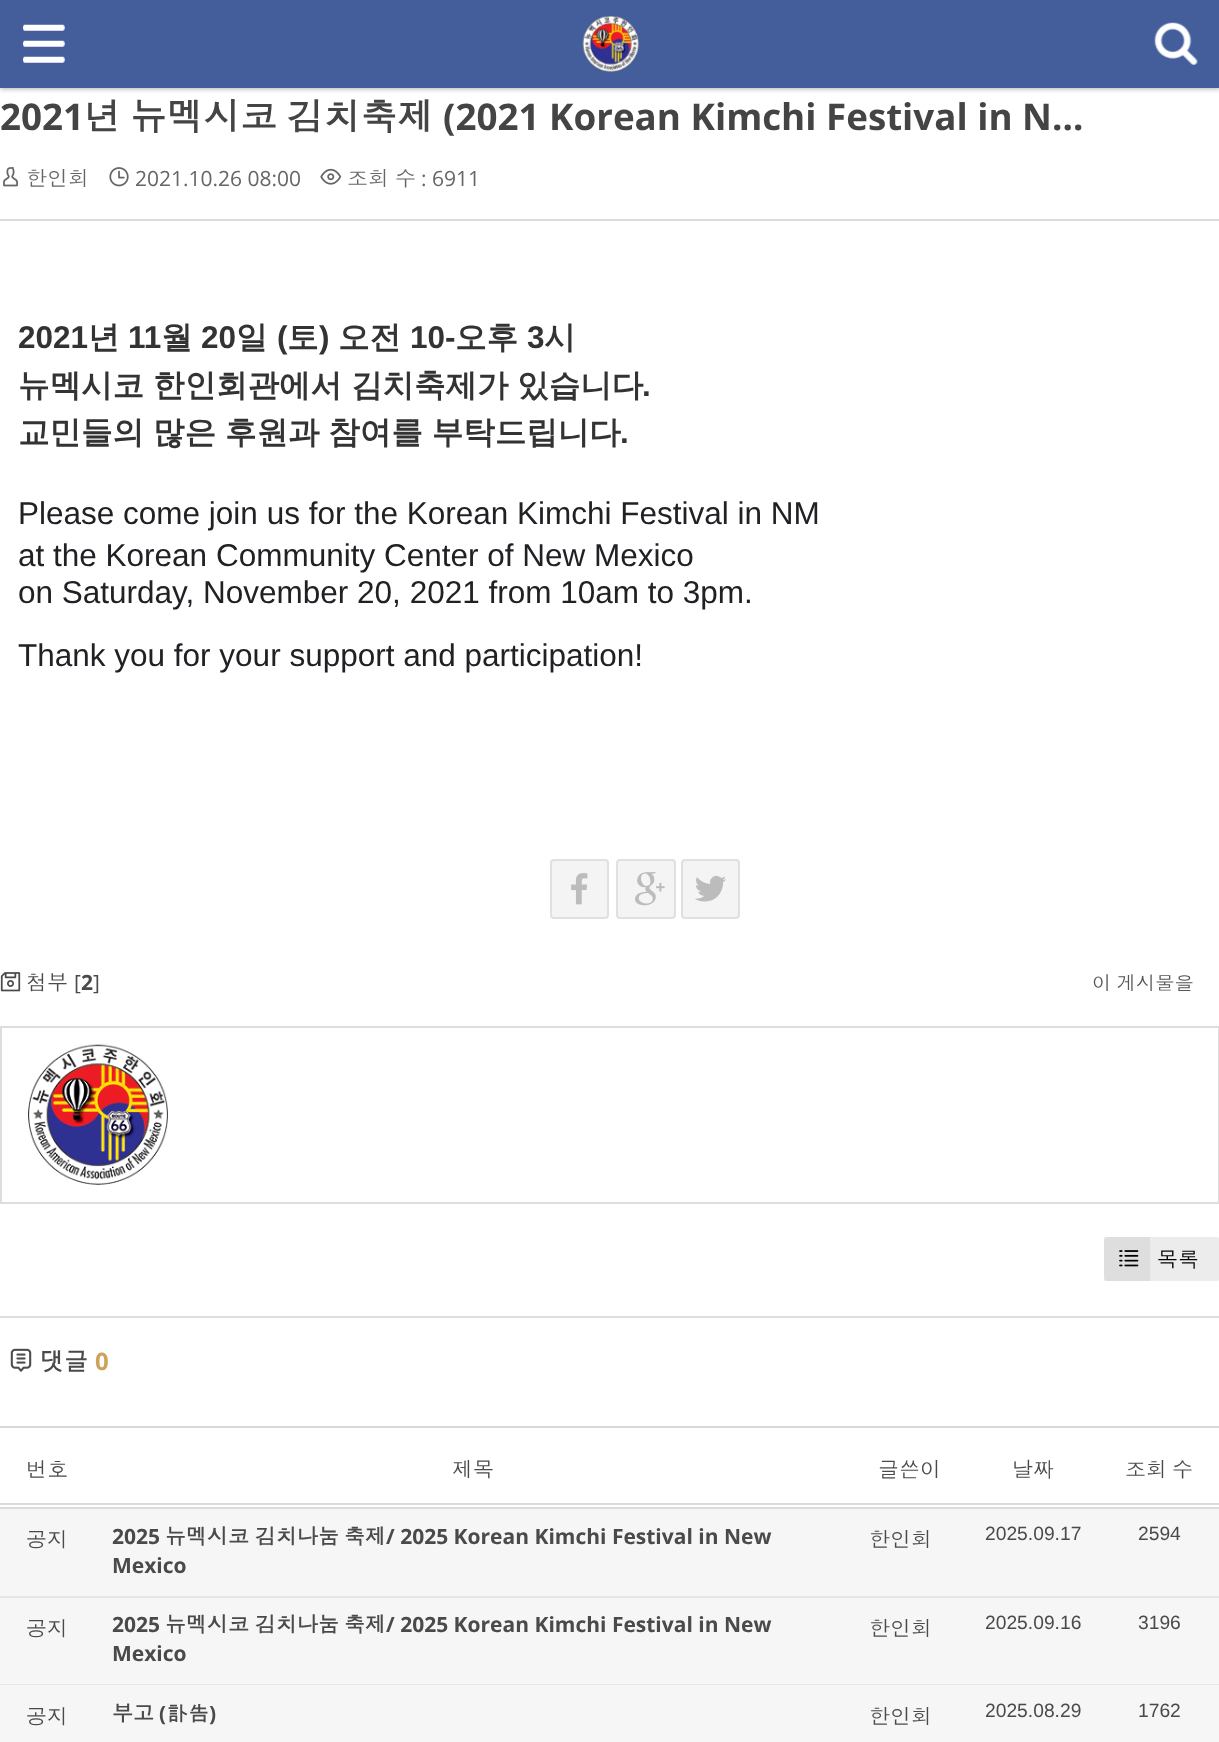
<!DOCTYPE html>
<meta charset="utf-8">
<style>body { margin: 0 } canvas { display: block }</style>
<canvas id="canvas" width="1219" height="1742"></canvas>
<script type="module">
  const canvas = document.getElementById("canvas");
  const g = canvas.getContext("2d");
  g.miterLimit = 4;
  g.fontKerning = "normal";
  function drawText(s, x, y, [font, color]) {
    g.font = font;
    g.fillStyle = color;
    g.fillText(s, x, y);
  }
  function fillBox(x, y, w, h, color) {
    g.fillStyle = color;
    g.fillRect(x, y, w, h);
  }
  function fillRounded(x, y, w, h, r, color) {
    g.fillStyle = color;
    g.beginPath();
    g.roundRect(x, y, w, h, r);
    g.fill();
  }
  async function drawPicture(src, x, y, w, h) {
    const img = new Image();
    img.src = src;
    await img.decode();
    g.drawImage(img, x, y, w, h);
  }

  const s1 = ["bold 36.75px Open Sans", "#444444"];
  const s2 = ["bold 36.75px Dotum", "#444444"];
  const s3 = ["21px Dotum", "#666666"];
  const s4 = ["21px Open Sans", "#666666"];
  const s5 = ["bold 31.5px Liberation Sans", "#333333"];
  const s6 = ["bold 31.5px WenQuanYi Zen Hei", "#333333"];
  const s7 = ["31.5px Liberation Sans", "#202124"];
  const s8 = ["21px Dotum", "#4A4A4A"];
  const s9 = ["21px Open Sans", "#4A4A4A"];
  const s10 = ["bold 21px Open Sans", "#4A4A4A"];
  const s11 = ["19.25px Dotum", "#555555"];
  const s12 = ["21px Dotum", "#000000"];
  const s13 = ["bold 24px Dotum", "#4A4A4A"];
  const s14 = ["bold 24px Open Sans", "#CDA25A"];
  const s15 = ["bold 21px Dotum", "#4A4A4A"];
  const s16 = ["19.25px Liberation Sans", "#4A4A4A"];

  fillBox(0, 0, 1219, 1742, "#FFFFFF");
  g.fillStyle = "rgba(0, 0, 0, 0.3)";
  g.filter = "blur(2.5px)";
  g.beginPath();
  g.rect(0, 2, 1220, 87);
  g.fill();
  g.filter = "none";
  fillBox(0, 0, 1219, 88, "#435E9B");
  await drawPicture("pic1.png", 23, 24, 42, 39);
  await drawPicture("pic2.png", 582, 16, 57, 56);
  await drawPicture("pic3.png", 1154, 22, 44, 43);
  drawText("2021", 0, 130, s1);
  drawText("년", 84, 130, s2);
  drawText("뉴멕시코", 130, 130, s2);
  drawText("김치축제", 287, 130, s2);
  drawText("(2021 Korean Kimchi Festival in N…", 443, 130, s1);
  fillBox(0, 219, 1219, 2, "#DDDDDD");
  await drawPicture("pic4.png", 3, 167, 15, 20);
  drawText("한인회", 26, 186, s3);
  await drawPicture("pic5.png", 109, 167, 20, 20);
  drawText("2021.10.26 08:00", 135, 186, s4);
  await drawPicture("pic6.png", 320, 168, 22, 17);
  drawText("조회", 347, 186, s3);
  drawText("수", 395, 186, s3);
  drawText(": 6911", 421, 186, s4);
  drawText("2021", 18, 348, s5);
  drawText("년", 88, 348, s6);
  drawText("11", 128, 348, s5);
  drawText("월", 161, 348, s6);
  drawText("20", 201, 348, s5);
  drawText("일", 236, 348, s6);
  drawText("(", 277, 348, s5);
  drawText("토", 287, 348, s6);
  drawText(")", 319, 348, s5);
  drawText("오전", 338, 348, s6);
  drawText("10-", 410, 348, s5);
  drawText("오후", 455, 348, s6);
  drawText("3", 527, 348, s5);
  drawText("시", 544, 348, s6);
  g.wordSpacing = "-0.5px";
  drawText("뉴멕시코 한인회관에서 김치축제가 있습니다", 18, 396, s6);
  g.wordSpacing = "0px";
  drawText(".", 642, 396, s5);
  g.wordSpacing = "-0.5px";
  drawText("교민들의 많은 후원과 참여를 부탁드립니다", 18, 443, s6);
  g.wordSpacing = "0px";
  drawText(".", 620, 443, s5);
  drawText("Please come join us for the Korean Kimchi Festival in NM", 18, 524, s7);
  drawText("at the Korean Community Center of New Mexico", 18, 566, s7);
  drawText("on Saturday, November 20, 2021 from 10am to 3pm.", 18, 603, s7);
  drawText("Thank you for your support and participation!", 18, 666, s7);
  g.fillStyle = "#F4F4F4";
  g.beginPath();
  g.roundRect(551, 860, 57, 58, 3);
  g.fill();
  g.strokeStyle = "#E0E0E0";
  g.lineWidth = 2;
  g.stroke();
  await drawPicture("pic7.png", 571, 873, 17, 32);
  g.beginPath();
  g.roundRect(617, 860, 58, 58, 3);
  g.fill();
  g.stroke();
  await drawPicture("pic8.png", 635, 872, 30, 34);
  g.beginPath();
  g.roundRect(682, 860, 57, 58, 3);
  g.fill();
  g.stroke();
  await drawPicture("pic9.png", 695, 875, 31, 27);
  await drawPicture("pic10.png", 0, 972, 21, 20);
  drawText("첨부", 26, 990, s8);
  drawText("[", 74, 990, s9);
  drawText("2", 81, 990, s10);
  drawText("]", 93, 990, s9);
  g.wordSpacing = "-1px";
  drawText("이 게시물을", 1092, 990, s11);
  g.strokeStyle = "#DDDDDD";
  g.strokeRect(1, 1027, 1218, 176);
  await drawPicture("pic11.png", 28, 1044, 140, 141);
  fillRounded(1104, 1237, 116, 44, 4, "#ECECEC");
  fillBox(1104, 1237, 46, 44, "rgba(0, 0, 0, 0.06)");
  await drawPicture("pic12.png", 1119, 1250, 20, 17);
  g.wordSpacing = "0px";
  drawText("목록", 1157, 1267, s12);
  fillBox(0, 1316, 1219, 2, "#DDDDDD");
  await drawPicture("pic13.png", 10, 1348, 22, 24);
  drawText("댓글", 40, 1370, s13);
  drawText("0", 95, 1370, s14);
  fillBox(0, 1426, 1219, 2, "#D8D8D8");
  fillBox(0, 1503, 1219, 2, "#DBDBDB");
  fillBox(0, 1507, 1219, 2, "#DBDBDB");
  drawText("번호", 26, 1477, s8);
  drawText("제목", 452, 1477, s8);
  drawText("글쓴이", 878, 1477, s8);
  drawText("날짜", 1012, 1477, s8);
  g.wordSpacing = "-2px";
  drawText("조회 수", 1125, 1477, s8);
  fillBox(0, 1509, 1219, 87, "#F6F6F6");
  fillBox(0, 1596, 1219, 2, "#E6E6E6");
  g.wordSpacing = "0px";
  drawText("공지", 26, 1547, s8);
  drawText("2025", 112, 1544, s10);
  drawText("뉴멕시코", 165, 1544, s15);
  drawText("김치나눔", 255, 1544, s15);
  drawText("축제", 344, 1544, s15);
  drawText("/ 2025 Korean Kimchi Festival in New", 386, 1544, s10);
  drawText("Mexico", 112, 1573, s10);
  drawText("한인회", 869, 1547, s8);
  drawText("2025.09.17", 985, 1540, s16);
  drawText("2594", 1138, 1540, s16);
  fillBox(0, 1598, 1219, 86, "#F6F6F6");
  fillBox(0, 1684, 1219, 1, "#E6E6E6");
  drawText("공지", 26, 1636, s8);
  drawText("2025", 112, 1632, s10);
  drawText("뉴멕시코", 165, 1632, s15);
  drawText("김치나눔", 255, 1632, s15);
  drawText("축제", 344, 1632, s15);
  drawText("/ 2025 Korean Kimchi Festival in New", 386, 1632, s10);
  drawText("Mexico", 112, 1661, s10);
  drawText("한인회", 869, 1636, s8);
  drawText("2025.09.16", 985, 1629, s16);
  drawText("3196", 1138, 1629, s16);
  fillBox(0, 1685, 1219, 57, "#F6F6F6");
  drawText("공지", 26, 1724, s8);
  drawText("부고", 112, 1721, s15);
  drawText("(", 159, 1721, s10);
  drawText("訃告", 167, 1721, s15);
  drawText(")", 209, 1721, s10);
  drawText("한인회", 869, 1724, s8);
  drawText("2025.08.29", 985, 1717, s16);
  drawText("1762", 1138, 1717, s16);
</script>
